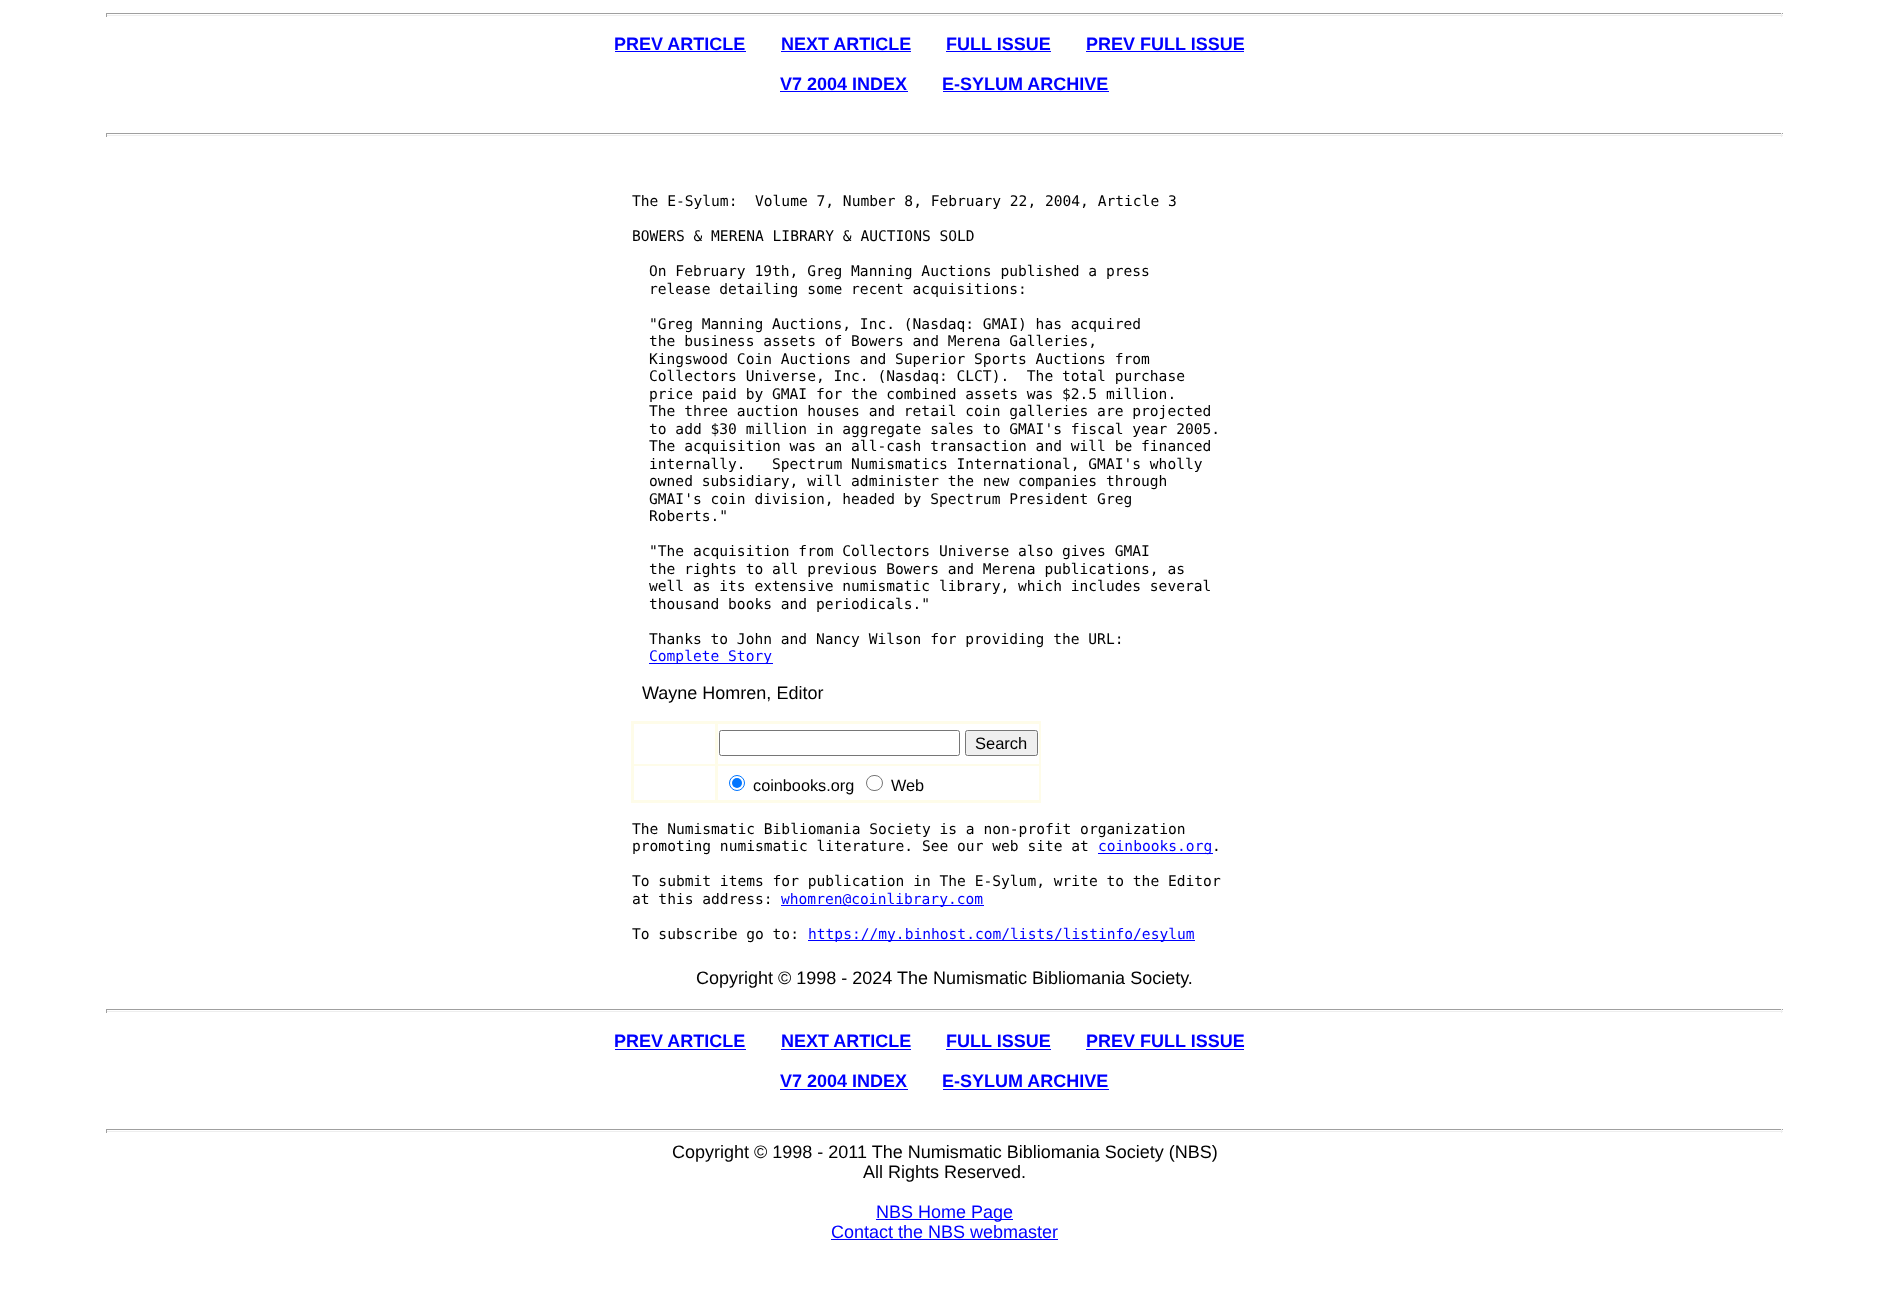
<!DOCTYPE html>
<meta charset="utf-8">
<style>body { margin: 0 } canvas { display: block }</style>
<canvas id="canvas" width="1888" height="1306"></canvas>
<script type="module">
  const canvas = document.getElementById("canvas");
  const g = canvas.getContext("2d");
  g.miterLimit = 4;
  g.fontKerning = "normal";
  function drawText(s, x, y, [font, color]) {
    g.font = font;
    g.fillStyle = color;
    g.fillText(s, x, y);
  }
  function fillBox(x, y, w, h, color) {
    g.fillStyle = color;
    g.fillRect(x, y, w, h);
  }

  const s1 = ["bold 18px Liberation Sans", "#0000FF"];
  const s2 = ["14.6px DejaVu Sans Mono", "#000000"];
  const s3 = ["14.6px DejaVu Sans Mono", "#0000FF"];
  const s4 = ["18px Liberation Sans", "#000000"];
  const s5 = ["16.5px Liberation Sans", "#000000"];
  const s6 = ["16.25px Liberation Sans", "#000000"];
  const s7 = ["18px Liberation Sans", "#0000FF"];

  fillBox(0, 0, 1888, 1306, "#FFFFFF");
  fillBox(106, 13, 1677, 1, "#9F9F9F");
  fillBox(1781, 13, 1, 4, "#EEEEEE");
  fillBox(106, 15, 1677, 1, "#EEEEEE");
  fillBox(106, 13, 1, 4, "#9F9F9F");
  drawText("PREV ARTICLE", 614, 50, s1);
  fillBox(615, 51, 131, 1, "#0000FF");
  drawText("NEXT ARTICLE", 781, 50, s1);
  fillBox(781, 51, 130, 1, "#0000FF");
  drawText("FULL ISSUE", 946, 50, s1);
  fillBox(946, 51, 105, 1, "#0000FF");
  drawText("PREV FULL ISSUE", 1086, 50, s1);
  fillBox(1086, 51, 158, 1, "#0000FF");
  drawText("V7 2004 INDEX", 780, 90, s1);
  fillBox(780, 91, 128, 1, "#0000FF");
  drawText("E-SYLUM ARCHIVE", 942, 90, s1);
  fillBox(943, 91, 166, 1, "#0000FF");
  fillBox(106, 133, 1677, 1, "#9F9F9F");
  fillBox(1781, 133, 1, 4, "#EEEEEE");
  fillBox(106, 135, 1677, 1, "#EEEEEE");
  fillBox(106, 133, 1, 4, "#9F9F9F");
  drawText("The E-Sylum:  Volume 7, Number 8, February 22, 2004, Article 3", 632, 206, s2);
  drawText("BOWERS & MERENA LIBRARY & AUCTIONS SOLD", 632, 241, s2);
  drawText("On February 19th, Greg Manning Auctions published a press", 649, 276, s2);
  drawText("release detailing some recent acquisitions:", 649, 294, s2);
  drawText("\"Greg Manning Auctions, Inc. (Nasdaq: GMAI) has acquired", 649, 329, s2);
  drawText("the business assets of Bowers and Merena Galleries,", 649, 346, s2);
  drawText("Kingswood Coin Auctions and Superior Sports Auctions from", 649, 364, s2);
  drawText("Collectors Universe, Inc. (Nasdaq: CLCT).  The total purchase", 649, 381, s2);
  drawText("price paid by GMAI for the combined assets was $2.5 million.", 649, 399, s2);
  drawText("The three auction houses and retail coin galleries are projected", 649, 416, s2);
  drawText("to add $30 million in aggregate sales to GMAI's fiscal year 2005.", 649, 434, s2);
  drawText("The acquisition was an all-cash transaction and will be financed", 649, 451, s2);
  drawText("internally.   Spectrum Numismatics International, GMAI's wholly", 649, 469, s2);
  drawText("owned subsidiary, will administer the new companies through", 649, 486, s2);
  drawText("GMAI's coin division, headed by Spectrum President Greg", 649, 504, s2);
  drawText("Roberts.\"", 649, 521, s2);
  drawText("\"The acquisition from Collectors Universe also gives GMAI", 649, 556, s2);
  drawText("the rights to all previous Bowers and Merena publications, as", 649, 574, s2);
  drawText("well as its extensive numismatic library, which includes several", 649, 591, s2);
  drawText("thousand books and periodicals.\"", 649, 609, s2);
  drawText("Thanks to John and Nancy Wilson for providing the URL:", 649, 644, s2);
  fillBox(649, 663, 124, 1, "#0000FF");
  drawText("Complete Story", 649, 661, s3);
  drawText("Wayne Homren, Editor", 642, 699, s4);
  fillBox(631, 721, 410, 82, "#FEFCE9");
  fillBox(634, 724, 81, 40, "#FFFFFF");
  fillBox(718, 724, 321, 40, "#FFFFFF");
  g.beginPath();
  g.roundRect(719.5, 730.5, 240, 25, 2);
  g.strokeStyle = "#767676";
  g.stroke();
  g.fillStyle = "#EFEFEF";
  g.beginPath();
  g.roundRect(965.5, 730.5, 72, 25, 2);
  g.fill();
  g.stroke();
  drawText("Search", 975, 749, s5);
  fillBox(634, 766, 81, 34, "#FFFFFF");
  fillBox(718, 766, 321, 34, "#FFFFFF");
  g.beginPath();
  g.arc(737, 783, 7.5, 0, Math.PI * 2);
  g.strokeStyle = "#0075FF";
  g.stroke();
  g.fillStyle = "#0075FF";
  g.beginPath();
  g.arc(737, 783, 5, 0, Math.PI * 2);
  g.fill();
  drawText("coinbooks.org", 753, 791, s6);
  g.beginPath();
  g.roundRect(866.5, 775.5, 16, 15, 7.5);
  g.strokeStyle = "#767676";
  g.stroke();
  drawText("Web", 891, 791, s6);
  drawText("The Numismatic Bibliomania Society is a non-profit organization", 632, 834, s2);
  drawText("promoting numismatic literature. See our web site at", 632, 851, s2);
  fillBox(1098, 853, 115, 1, "#0000FF");
  drawText("coinbooks.org", 1098, 851, s3);
  drawText(".", 1212, 851, s2);
  drawText("To submit items for publication in The E-Sylum, write to the Editor", 632, 886, s2);
  drawText("at this address:", 632, 904, s2);
  fillBox(781, 905, 203, 1, "#0000FF");
  drawText("whomren@coinlibrary.com", 781, 904, s3);
  drawText("To subscribe go to:", 632, 939, s2);
  fillBox(808, 940, 387, 1, "#0000FF");
  drawText("https://my.binhost.com/lists/listinfo/esylum", 808, 939, s3);
  drawText("Copyright © 1998 - 2024 The Numismatic Bibliomania Society.", 696, 984, s4);
  fillBox(106, 1009, 1677, 1, "#9F9F9F");
  fillBox(1781, 1009, 1, 4, "#EEEEEE");
  fillBox(106, 1011, 1677, 1, "#EEEEEE");
  fillBox(106, 1009, 1, 4, "#9F9F9F");
  drawText("PREV ARTICLE", 614, 1047, s1);
  fillBox(615, 1049, 131, 1, "#0000FF");
  drawText("NEXT ARTICLE", 781, 1047, s1);
  fillBox(781, 1049, 130, 1, "#0000FF");
  drawText("FULL ISSUE", 946, 1047, s1);
  fillBox(946, 1049, 105, 1, "#0000FF");
  drawText("PREV FULL ISSUE", 1086, 1047, s1);
  fillBox(1086, 1049, 158, 1, "#0000FF");
  drawText("V7 2004 INDEX", 780, 1087, s1);
  fillBox(780, 1089, 128, 1, "#0000FF");
  drawText("E-SYLUM ARCHIVE", 942, 1087, s1);
  fillBox(943, 1089, 166, 1, "#0000FF");
  fillBox(106, 1129, 1677, 1, "#9F9F9F");
  fillBox(1781, 1129, 1, 4, "#EEEEEE");
  fillBox(106, 1131, 1677, 1, "#EEEEEE");
  fillBox(106, 1129, 1, 4, "#9F9F9F");
  drawText("Copyright © 1998 - 2011 The Numismatic Bibliomania Society (NBS)", 672, 1158, s4);
  drawText("All Rights Reserved.", 863, 1178, s4);
  fillBox(876, 1219, 137, 1, "#0000FF");
  drawText("NBS Home Page", 876, 1218, s7);
  drawText("Contact the NBS webmaster", 831, 1238, s7);
  fillBox(831, 1239, 227, 1, "#0000FF");
</script>
